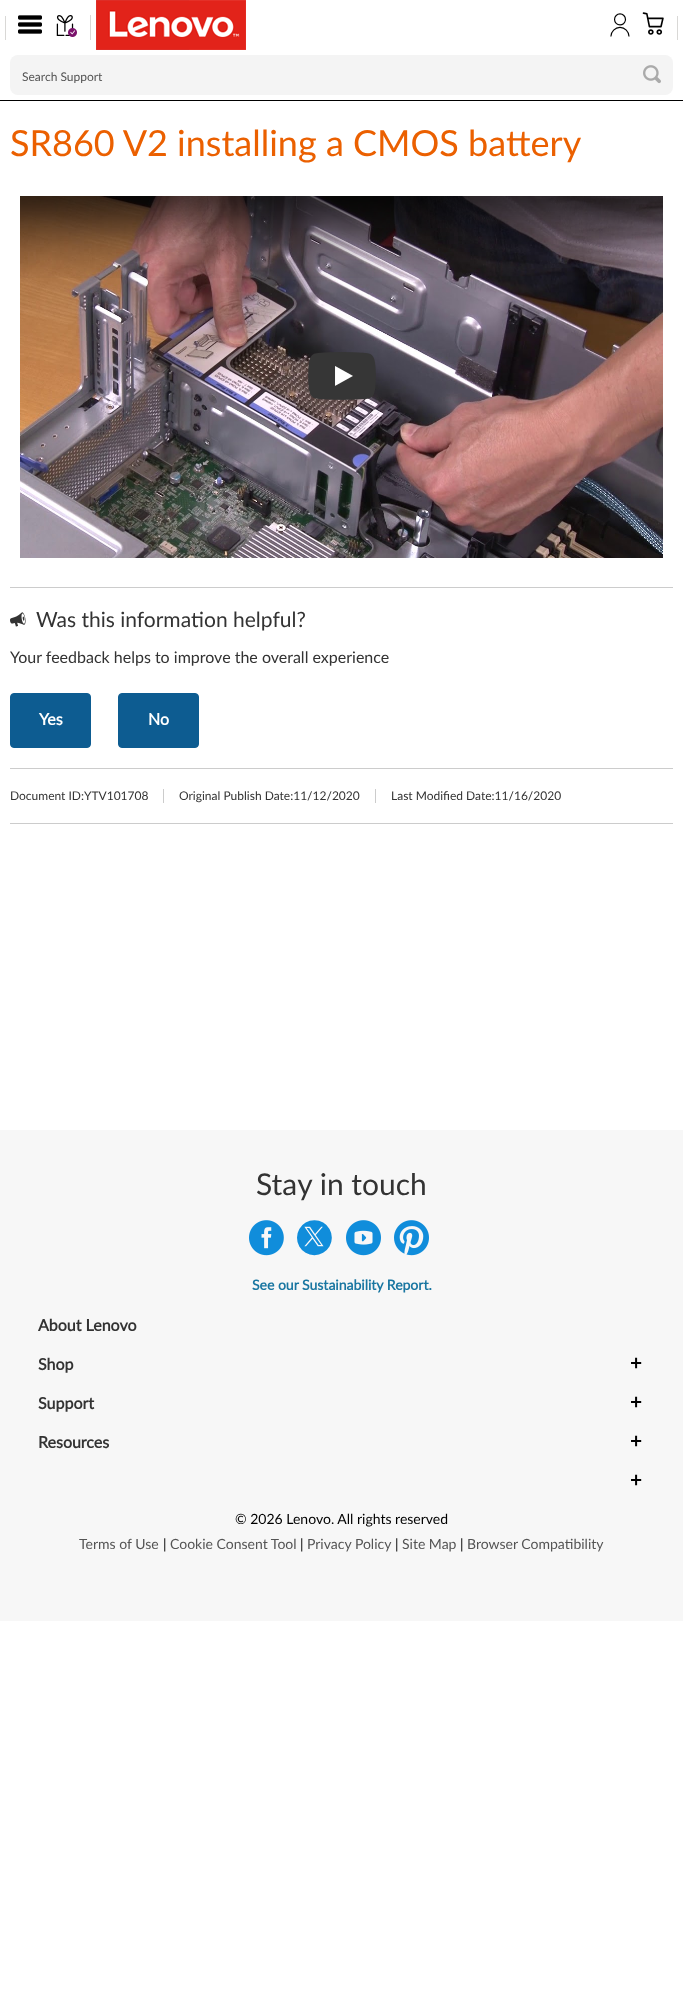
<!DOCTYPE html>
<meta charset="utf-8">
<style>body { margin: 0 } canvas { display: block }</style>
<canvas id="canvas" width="683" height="2015"></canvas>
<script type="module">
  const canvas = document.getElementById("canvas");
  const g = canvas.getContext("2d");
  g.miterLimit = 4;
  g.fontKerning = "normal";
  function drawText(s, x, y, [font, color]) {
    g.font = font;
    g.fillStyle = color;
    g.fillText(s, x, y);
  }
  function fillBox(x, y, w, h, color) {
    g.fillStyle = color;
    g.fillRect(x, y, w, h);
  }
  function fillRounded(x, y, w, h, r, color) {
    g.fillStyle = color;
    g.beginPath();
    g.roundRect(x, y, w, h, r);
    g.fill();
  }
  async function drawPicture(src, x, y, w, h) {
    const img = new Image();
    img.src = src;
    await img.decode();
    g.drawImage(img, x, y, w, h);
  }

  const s1 = ["24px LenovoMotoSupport", "#000000"];
  const s2 = ["12px Lato", "#545454"];
  const s3 = ["36px Lato", "#EB6000"];
  const s4 = ["16px LenovoMotoSupport", "#333333"];
  const s5 = ["21px Lato", "#333333"];
  const s6 = ["16px Lato", "#333333"];
  const s7 = ["bold 16px Lato", "#FFFFFF"];
  const s8 = ["12px Lato", "#333333"];
  const s9 = ["30px Lato", "#333333"];
  const s10 = ["35px LenovoMotoSupport", "#108DDB"];
  const s11 = ["bold 14px Lato", "#1976A1"];
  const s12 = ["bold 16px Lato", "#333333"];
  const s13 = ["bold 20px Lato", "#000000"];
  const s14 = ["14px Lato", "#000000"];
  const s15 = ["14px Lato", "#545454"];

  fillBox(0, 0, 683, 2015, "#FFFFFF");
  fillBox(0, 100, 683, 1, "#000000");
  fillBox(5, 16, 1, 24, "#D9D8D6");
  await drawPicture("pic1.png", 18, 15, 24, 19);
  fillBox(90, 15, 1, 25, "#D9D8D6");
  await drawPicture("pic2.png", 56, 15, 21, 22);
  await drawPicture("pic3.png", 96, 0, 150, 50);
  drawText("󡑆", 608, 35, s1);
  drawText("󡐑", 642, 35, s1);
  fillBox(677, 16, 1, 24, "#D9D8D6");
  fillRounded(10, 55, 663, 40, 8, "#F4F4F4");
  drawText("Search Support", 22, 81, s2);
  await drawPicture("pic4.png", 643, 65, 18, 19);
  drawText("SR860 V2 installing a CMOS battery", 10, 156, s3);
  await drawPicture("pic5.png", 20, 196, 643, 362);
  await drawPicture("pic6.png", 20, 196, 643, 82);
  await drawPicture("pic7.png", 308, 352, 68, 48);
  fillBox(10, 587, 663, 1, "#CCCCCC");
  drawText("󡉇", 10, 627, s4);
  drawText("Was this information helpful?", 36, 627, s5);
  drawText("Your feedback helps to improve the overall experience", 10, 663, s6);
  g.fillStyle = "#0D5C91";
  g.beginPath();
  g.roundRect(10.5, 693.5, 80, 54, 3.5);
  g.fill();
  g.strokeStyle = "#0D5C91";
  g.stroke();
  drawText("Yes", 39, 725, s7);
  g.fillStyle = "#0D5C91";
  g.beginPath();
  g.roundRect(118.5, 693.5, 80, 54, 3.5);
  g.fill();
  g.stroke();
  drawText("No", 148, 725, s7);
  fillBox(10, 768, 663, 1, "#CCCCCC");
  fillBox(10, 823, 663, 1, "#CCCCCC");
  fillBox(163, 789, 1, 14, "#CCCCCC");
  drawText("Document ID:", 10, 800, s8);
  drawText("YTV101708", 84, 800, s8);
  fillBox(375, 789, 1, 14, "#CCCCCC");
  drawText("Original Publish Date:11/12/2020", 179, 800, s8);
  drawText("Last Modified Date:11/16/2020", 391, 800, s8);
  fillBox(0, 1130, 683, 491, "#F7F7F7");
  drawText("Stay in touch", 256, 1195, s9);
  await drawPicture("pic8.png", 249, 1220, 35, 36);
  drawText("󡔖", 297, 1253, s10);
  await drawPicture("pic9.png", 346, 1220, 35, 36);
  await drawPicture("pic10.png", 394, 1220, 35, 36);
  drawText("See our Sustainability Report.", 252, 1290, s11);
  drawText("About Lenovo", 38, 1331, s12);
  drawText("+", 630, 1370, s13);
  drawText("Shop", 38, 1370, s12);
  drawText("+", 630, 1409, s13);
  drawText("Support", 38, 1409, s12);
  drawText("+", 630, 1448, s13);
  drawText("Resources", 38, 1448, s12);
  drawText("+", 630, 1487, s13);
  drawText("© 2026 Lenovo. All rights reserved", 235, 1524, s14);
  drawText("Terms of Use", 79, 1549, s15);
  drawText("|", 163, 1549, s14);
  drawText("Cookie Consent Tool", 170, 1549, s15);
  drawText("|", 300, 1549, s14);
  drawText("Privacy Policy", 307, 1549, s15);
  drawText("|", 395, 1549, s14);
  drawText("Site Map", 402, 1549, s15);
  drawText("|", 460, 1549, s14);
  drawText("Browser Compatibility", 467, 1549, s15);
</script>
